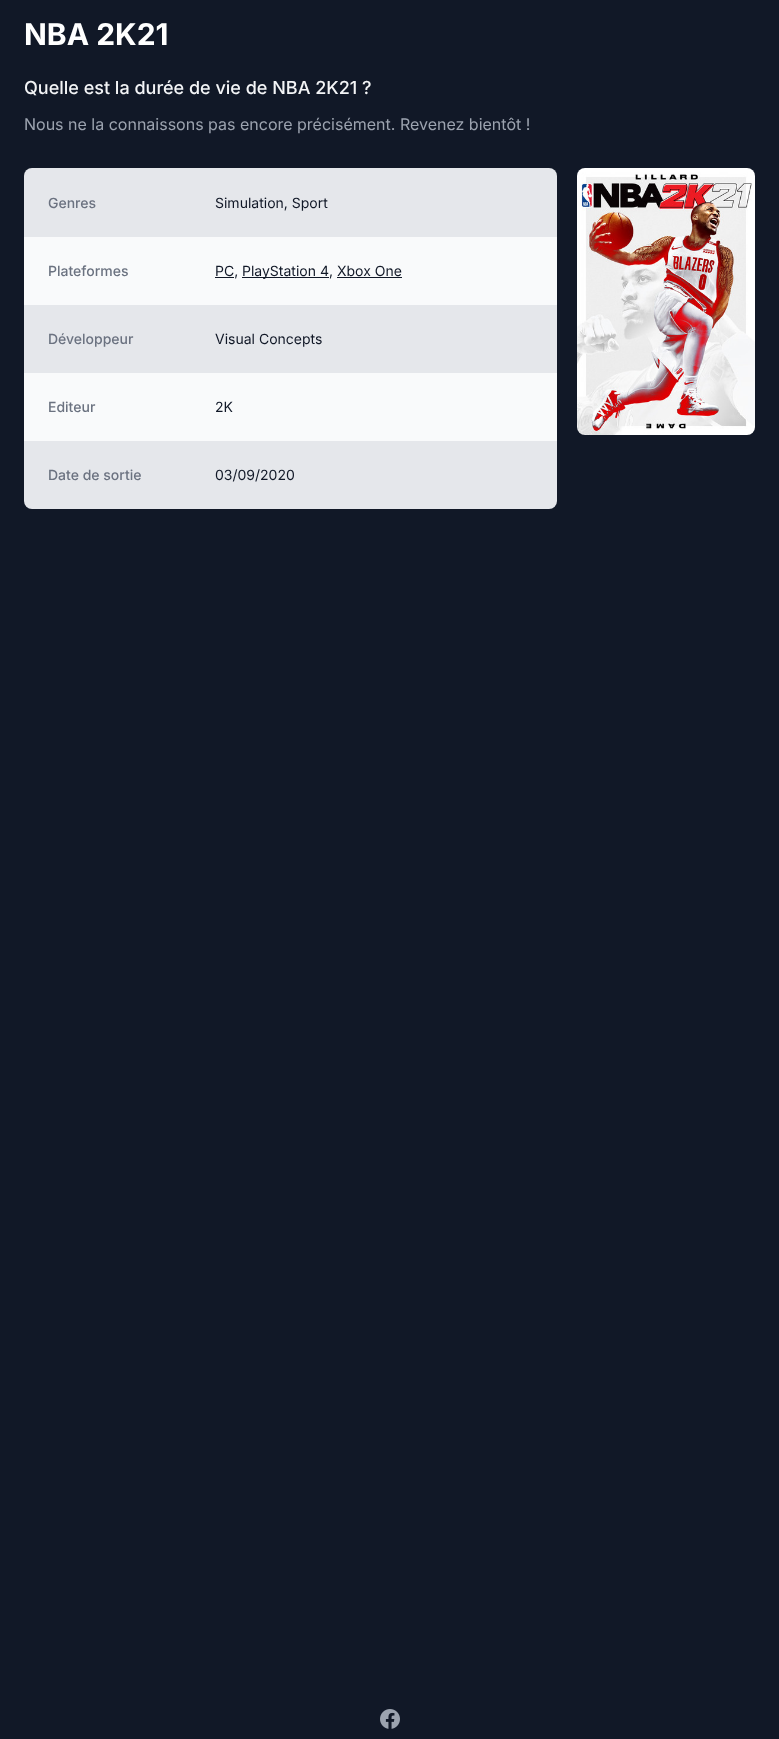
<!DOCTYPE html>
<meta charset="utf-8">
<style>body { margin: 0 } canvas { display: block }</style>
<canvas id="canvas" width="779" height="1739"></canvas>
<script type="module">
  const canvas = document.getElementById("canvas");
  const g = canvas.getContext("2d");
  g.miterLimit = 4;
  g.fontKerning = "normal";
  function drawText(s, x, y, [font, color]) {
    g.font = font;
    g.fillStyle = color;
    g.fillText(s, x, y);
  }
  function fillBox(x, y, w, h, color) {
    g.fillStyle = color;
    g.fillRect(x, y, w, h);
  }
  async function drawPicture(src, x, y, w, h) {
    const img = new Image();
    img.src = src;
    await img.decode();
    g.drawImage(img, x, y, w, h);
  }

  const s1 = ["bold 30px Inter", "#FFFFFF"];
  const s2 = ["500 18px Inter", "#F3F4F6"];
  const s3 = ["16px Inter", "#9CA3AF"];
  const s4 = ["500 14px Inter", "#6B7280"];
  const s5 = ["14px Inter", "#111827"];

  fillBox(0, 0, 779, 1739, "#111827");
  drawText("NBA 2K21", 24, 45, s1);
  drawText("Quelle est la durée de vie de NBA 2K21 ?", 24, 94, s2);
  drawText("Nous ne la connaissons pas encore précisément. Revenez bientôt !", 24, 130, s3);
  g.save();
  g.beginPath();
  g.roundRect(24, 168, 533, 341, 8);
  g.clip();
  fillBox(24, 168, 533, 1, "#E5E7EB");
  fillBox(24, 169, 533, 68, "#E5E7EB");
  g.restore();
  drawText("Genres", 48, 208, s4);
  drawText("Simulation, Sport", 215, 208, s5);
  fillBox(24, 237, 533, 68, "#F9FAFB");
  drawText("Plateformes", 48, 276, s4);
  fillBox(215, 277, 19, 1, "#111827");
  drawText("PC,", 215, 276, s5);
  fillBox(242, 277, 87, 1, "#111827");
  drawText("PlayStation 4", 242, 276, s5);
  drawText(", Xbox One", 329, 276, s5);
  fillBox(337, 277, 65, 1, "#111827");
  fillBox(24, 305, 533, 68, "#E5E7EB");
  drawText("Développeur", 48, 344, s4);
  drawText("Visual Concepts", 215, 344, s5);
  fillBox(24, 373, 533, 68, "#F9FAFB");
  drawText("Editeur", 48, 412, s4);
  drawText("2K", 215, 412, s5);
  g.fillStyle = "#E5E7EB";
  g.beginPath();
  g.roundRect(24, 441, 533, 68, [0, 0, 8, 8]);
  g.fill();
  drawText("Date de sortie", 48, 480, s4);
  drawText("03/09/2020", 215, 480, s5);
  await drawPicture("pic1.png", 577, 168, 178, 267);
  await drawPicture("pic2.png", 380, 1709, 20, 20);
</script>
